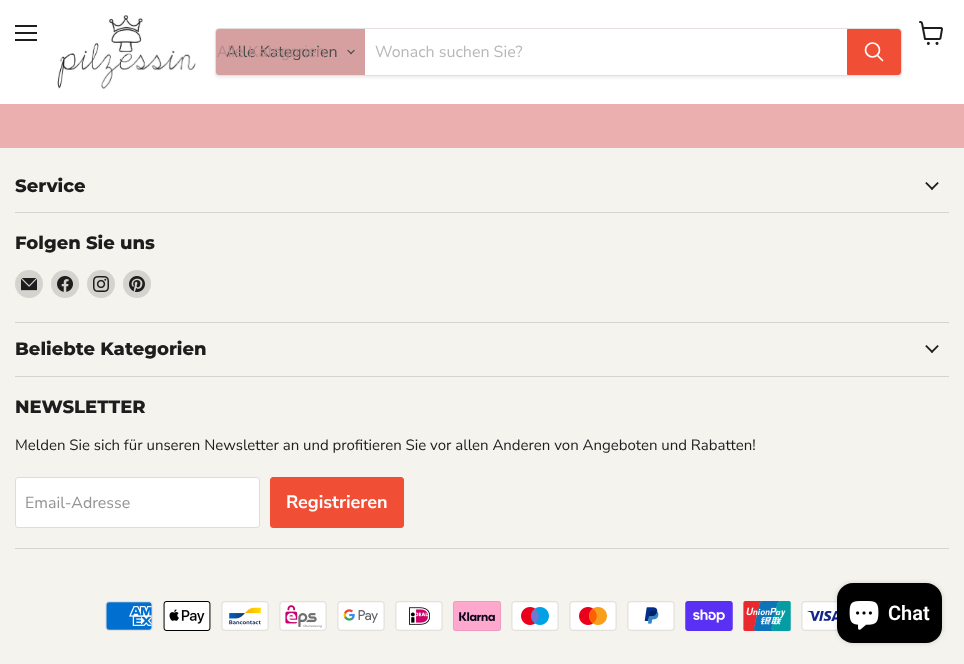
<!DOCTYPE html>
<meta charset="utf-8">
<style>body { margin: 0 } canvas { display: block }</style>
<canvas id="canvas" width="964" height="664"></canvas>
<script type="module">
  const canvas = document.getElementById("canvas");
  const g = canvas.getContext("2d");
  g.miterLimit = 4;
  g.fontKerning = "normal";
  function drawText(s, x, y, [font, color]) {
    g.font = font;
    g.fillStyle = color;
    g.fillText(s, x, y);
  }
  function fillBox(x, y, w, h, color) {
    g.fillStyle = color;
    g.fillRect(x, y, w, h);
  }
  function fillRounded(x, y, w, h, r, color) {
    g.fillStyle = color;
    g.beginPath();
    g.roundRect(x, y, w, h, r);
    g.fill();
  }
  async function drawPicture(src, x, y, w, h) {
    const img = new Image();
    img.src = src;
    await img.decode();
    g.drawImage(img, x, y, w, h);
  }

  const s1 = ["16px Nunito Sans", "#4D4D4D"];
  const s2 = ["16px Liberation Sans", "#B68C8C"];
  const s3 = ["16px Nunito Sans", "#B8B8B8"];
  const s4 = ["800 18px Montserrat", "#1D1D1D"];
  const s5 = ["15px Nunito Sans", "#1D1D1D"];
  const s6 = ["16px Nunito Sans", "#949494"];
  const s7 = ["bold 18px Nunito Sans", "#FFFFFF"];
  const s8 = ["600 20px Roboto", "#FFFFFF"];

  fillBox(0, 0, 964, 664, "#EBAFAF");
  fillBox(0, 0, 964, 104, "#FFFFFF");
  fillBox(15, 25, 22, 2, "#1D1D1D");
  fillBox(15, 32, 22, 2, "#1D1D1D");
  fillBox(15, 39, 22, 2, "#1D1D1D");
  await drawPicture("pic1.png", 919, 21, 24, 24);
  await drawPicture("pic2.png", 57, 15, 139, 74);
  g.save();
  g.beginPath();
  g.moveTo(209, 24);
  g.lineTo(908, 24);
  g.lineTo(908, 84);
  g.lineTo(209, 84);
  g.closePath();
  g.moveTo(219, 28);
  g.lineTo(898, 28);
  g.bezierCurveTo(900, 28, 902, 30, 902, 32);
  g.lineTo(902, 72);
  g.bezierCurveTo(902, 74, 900, 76, 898, 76);
  g.lineTo(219, 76);
  g.bezierCurveTo(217, 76, 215, 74, 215, 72);
  g.lineTo(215, 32);
  g.bezierCurveTo(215, 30, 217, 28, 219, 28);
  g.closePath();
  g.clip("evenodd");
  g.fillStyle = "rgba(118, 88, 88, 0.11)";
  g.filter = "blur(1.5px)";
  g.beginPath();
  g.roundRect(215, 30, 687, 48, 4);
  g.fill();
  g.filter = "none";
  g.restore();
  g.beginPath();
  g.roundRect(215.5, 28.5, 686, 47, 3.5);
  g.strokeStyle = "rgba(118, 88, 88, 0.2)";
  g.stroke();
  g.fillStyle = "#D6A0A0";
  g.beginPath();
  g.roundRect(216, 29, 149, 46, [3, 0, 0, 3]);
  g.fill();
  drawText("Alle Kategorien", 226, 57, s1);
  drawText("Alle Kategorien", 217, 57, s2);
  await drawPicture("pic3.png", 347, 49, 8, 6);
  drawText("Wonach suchen Sie?", 375, 57, s3);
  g.fillStyle = "#F04F36";
  g.beginPath();
  g.roundRect(847.5, 29.5, 53, 45, [0, 2.5, 2.5, 0]);
  g.fill();
  g.strokeStyle = "#F04F36";
  g.stroke();
  g.beginPath();
  g.moveTo(882.5, 60.5);
  g.lineTo(877.5, 55.5);
  g.strokeStyle = "#FFFFFF";
  g.lineWidth = 1.7;
  g.lineCap = "round";
  g.stroke();
  g.beginPath();
  g.arc(872.5, 50, 7, 0, Math.PI * 2);
  g.stroke();
  fillBox(0, 148, 964, 516, "#F5F3ED");
  fillBox(15, 212, 934, 1, "#D5D3CE");
  drawText("Service", 15, 192, s4);
  await drawPicture("pic4.png", 925, 182, 14, 8);
  fillBox(15, 322, 934, 1, "#D5D3CE");
  drawText("Folgen Sie uns", 15, 249, s4);
  g.fillStyle = "#D5D3CE";
  g.beginPath();
  g.arc(29, 284, 14, 0, Math.PI * 2);
  g.fill();
  await drawPicture("pic5.png", 21, 278, 16, 13);
  g.beginPath();
  g.arc(65, 284, 14, 0, Math.PI * 2);
  g.fill();
  await drawPicture("pic6.png", 57, 276, 16, 16);
  g.beginPath();
  g.arc(101, 284, 14, 0, Math.PI * 2);
  g.fill();
  await drawPicture("pic7.png", 93, 276, 16, 16);
  g.beginPath();
  g.arc(137, 284, 14, 0, Math.PI * 2);
  g.fill();
  await drawPicture("pic8.png", 129, 276, 16, 16);
  fillBox(15, 376, 934, 1, "#D5D3CE");
  drawText("Beliebte Kategorien", 15, 355, s4);
  await drawPicture("pic4.png", 925, 345, 14, 8);
  fillBox(15, 548, 934, 1, "#D5D3CE");
  drawText("NEWSLETTER", 15, 413, s4);
  drawText("Melden Sie sich für unseren Newsletter an und profitieren Sie vor allen Anderen von Angeboten und Rabatten!", 15, 450, s5);
  g.fillStyle = "#FFFFFF";
  g.beginPath();
  g.roundRect(15.5, 477.5, 244, 50, 2.5);
  g.fill();
  g.strokeStyle = "#DDDDDD";
  g.lineWidth = 1;
  g.stroke();
  drawText("Email-Adresse", 25, 508, s6);
  g.fillStyle = "#F04F36";
  g.beginPath();
  g.roundRect(270.5, 477.5, 133, 50, 2.5);
  g.fill();
  g.strokeStyle = "#F04F36";
  g.stroke();
  drawText("Registrieren", 286, 508, s7);
  await drawPicture("pic9.png", 105, 601, 48, 30);
  await drawPicture("pic10.png", 163, 601, 48, 30);
  await drawPicture("pic11.png", 221, 601, 48, 30);
  await drawPicture("pic12.png", 279, 601, 48, 30);
  await drawPicture("pic13.png", 337, 601, 48, 30);
  await drawPicture("pic14.png", 395, 601, 48, 30);
  await drawPicture("pic15.png", 453, 601, 48, 30);
  await drawPicture("pic16.png", 511, 601, 48, 30);
  await drawPicture("pic17.png", 569, 601, 48, 30);
  await drawPicture("pic18.png", 627, 601, 48, 30);
  await drawPicture("pic19.png", 685, 601, 48, 30);
  await drawPicture("pic20.png", 743, 601, 48, 30);
  await drawPicture("pic21.png", 801, 601, 37, 30);
  g.fillStyle = "rgba(0, 0, 0, 0.15)";
  g.filter = "blur(2.5px)";
  g.beginPath();
  g.roundRect(837, 583, 105, 60, 16);
  g.fill();
  g.filter = "none";
  fillRounded(837, 583, 105, 60, 16, "#000000");
  await drawPicture("pic22.png", 849, 601, 30, 29);
  drawText("Chat", 888, 620, s8);
</script>
